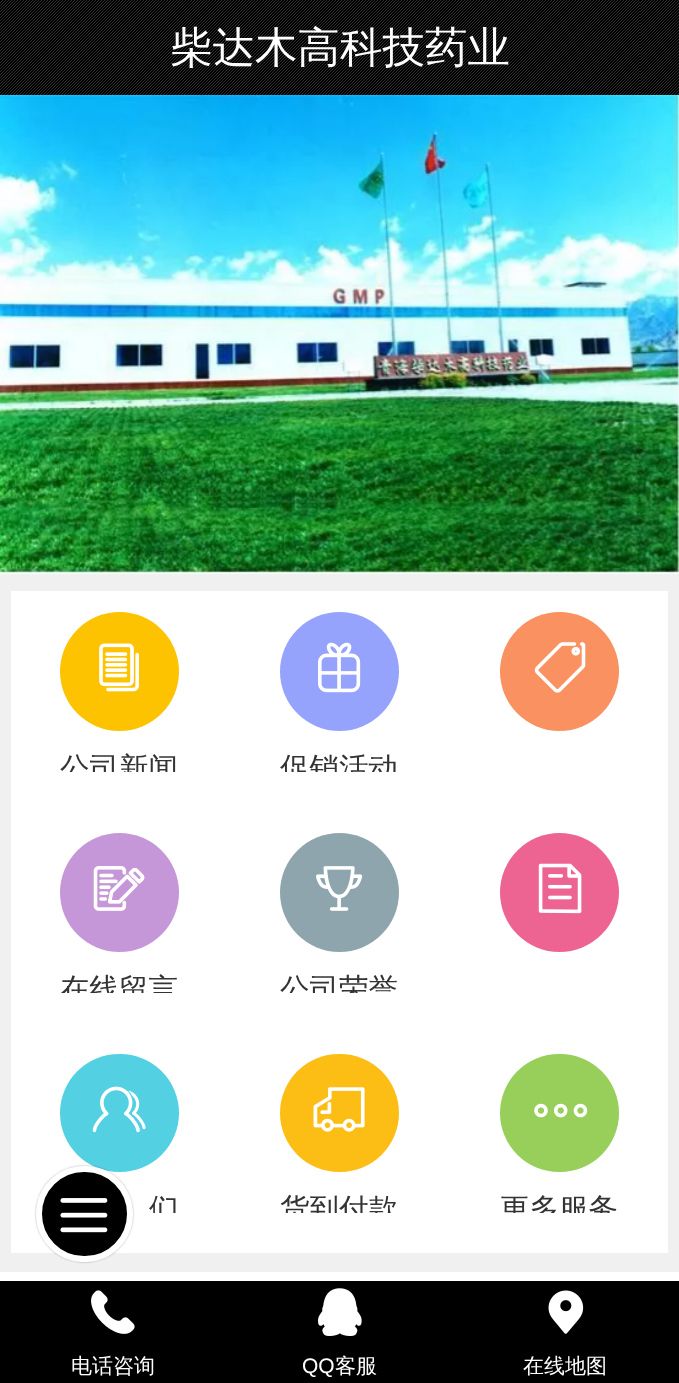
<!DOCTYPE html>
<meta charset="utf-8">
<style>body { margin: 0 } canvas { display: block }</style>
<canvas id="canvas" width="679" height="1383"></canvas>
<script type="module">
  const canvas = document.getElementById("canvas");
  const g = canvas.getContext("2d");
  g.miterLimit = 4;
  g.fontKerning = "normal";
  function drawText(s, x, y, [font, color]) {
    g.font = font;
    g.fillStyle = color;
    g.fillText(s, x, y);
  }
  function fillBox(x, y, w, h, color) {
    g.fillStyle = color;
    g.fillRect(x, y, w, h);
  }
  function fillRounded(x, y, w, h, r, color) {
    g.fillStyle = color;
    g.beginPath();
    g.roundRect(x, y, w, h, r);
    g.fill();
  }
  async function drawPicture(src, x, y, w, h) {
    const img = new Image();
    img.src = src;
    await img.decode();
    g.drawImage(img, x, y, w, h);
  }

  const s1 = ["500 42.5px WenQuanYi Zen Hei", "#FFFFFF"];
  const s2 = ["500 29.5px WenQuanYi Zen Hei", "#333333"];
  const s3 = ["500 21px WenQuanYi Zen Hei", "#FFFFFF"];
  const s4 = ["21px Liberation Sans", "#FFFFFF"];

  fillBox(0, 0, 679, 1383, "#FFFFFF");
  fillBox(0, 0, 679, 95, "#000000");
  await drawPicture("pic1.png", 0, 0, 679, 95);
  drawText("柴达木高科技药业", 170, 62, s1);
  fillBox(0, 574, 679, 698, "#F0F0F0");
  fillBox(11, 591, 657, 662, "#FFFFFF");
  fillRounded(60, 1054, 119, 118, 59, "#54D0E3");
  g.fillStyle = "rgba(0, 0, 0, 0.3)";
  g.filter = "blur(1px)";
  g.beginPath();
  g.roundRect(36, 1166, 97, 96, 48);
  g.fill();
  g.filter = "none";
  g.fillStyle = "#000000";
  g.beginPath();
  g.roundRect(39, 1169, 91, 90, 45);
  g.fill();
  g.strokeStyle = "#FFFFFF";
  g.lineWidth = 6;
  g.stroke();
  await drawPicture("pic2.png", 60, 1198, 48, 35);
  await drawPicture("pic3.png", 0, 95, 679, 479);
  g.fillStyle = "#F99161";
  g.beginPath();
  g.arc(559.5, 671.5, 59.5, 0, Math.PI * 2);
  g.fill();
  await drawPicture("pic4.png", 534, 642, 52, 51);
  g.fillStyle = "#FDC200";
  g.beginPath();
  g.arc(119.5, 671.5, 59.5, 0, Math.PI * 2);
  g.fill();
  await drawPicture("pic5.png", 99, 643, 40, 49);
  g.save();
  g.beginPath();
  g.rect(11, 591, 217, 181);
  g.clip();
  drawText("公司新闻", 60, 778, s2);
  g.restore();
  g.fillStyle = "#96A3FC";
  g.beginPath();
  g.arc(339.5, 671.5, 59.5, 0, Math.PI * 2);
  g.fill();
  await drawPicture("pic6.png", 318, 642, 43, 51);
  g.save();
  g.beginPath();
  g.rect(230, 591, 219, 181);
  g.clip();
  drawText("促销活动", 280, 778, s2);
  g.restore();
  g.fillStyle = "#ED6492";
  g.beginPath();
  g.arc(559.5, 892.5, 59.5, 0, Math.PI * 2);
  g.fill();
  await drawPicture("pic7.png", 538, 863, 44, 51);
  g.fillStyle = "#C697D8";
  g.beginPath();
  g.arc(119.5, 892.5, 59.5, 0, Math.PI * 2);
  g.fill();
  await drawPicture("pic8.png", 93, 866, 52, 45);
  g.save();
  g.beginPath();
  g.rect(11, 812, 217, 181);
  g.clip();
  drawText("在线留言", 60, 999, s2);
  g.restore();
  g.fillStyle = "#8FA5AD";
  g.beginPath();
  g.arc(339.5, 892.5, 59.5, 0, Math.PI * 2);
  g.fill();
  await drawPicture("pic9.png", 316, 866, 47, 45);
  g.save();
  g.beginPath();
  g.rect(230, 812, 219, 181);
  g.clip();
  drawText("公司荣誉", 280, 999, s2);
  g.restore();
  await drawPicture("pic10.png", 92, 1086, 54, 47);
  g.save();
  g.beginPath();
  g.rect(11, 1032, 217, 181);
  g.clip();
  drawText("们", 149, 1219, s2);
  g.restore();
  fillRounded(280, 1054, 119, 118, 59, "#FCBD15");
  await drawPicture("pic11.png", 313, 1087, 52, 45);
  g.save();
  g.beginPath();
  g.rect(230, 1032, 219, 181);
  g.clip();
  drawText("货到付款", 280, 1219, s2);
  g.restore();
  fillRounded(500, 1054, 119, 118, 59, "#98CE5A");
  await drawPicture("pic12.png", 534, 1103, 54, 15);
  g.save();
  g.beginPath();
  g.rect(451, 1032, 217, 181);
  g.clip();
  drawText("更多服务", 500, 1219, s2);
  g.restore();
  fillBox(0, 1281, 679, 102, "#000000");
  await drawPicture("pic13.png", 91, 1290, 44, 44);
  drawText("电话咨询", 71, 1373, s3);
  await drawPicture("pic14.png", 318, 1288, 44, 48);
  drawText("QQ", 302, 1373, s4);
  drawText("客服", 335, 1373, s3);
  await drawPicture("pic15.png", 548, 1290, 36, 44);
  drawText("在线地图", 523, 1373, s3);
</script>
